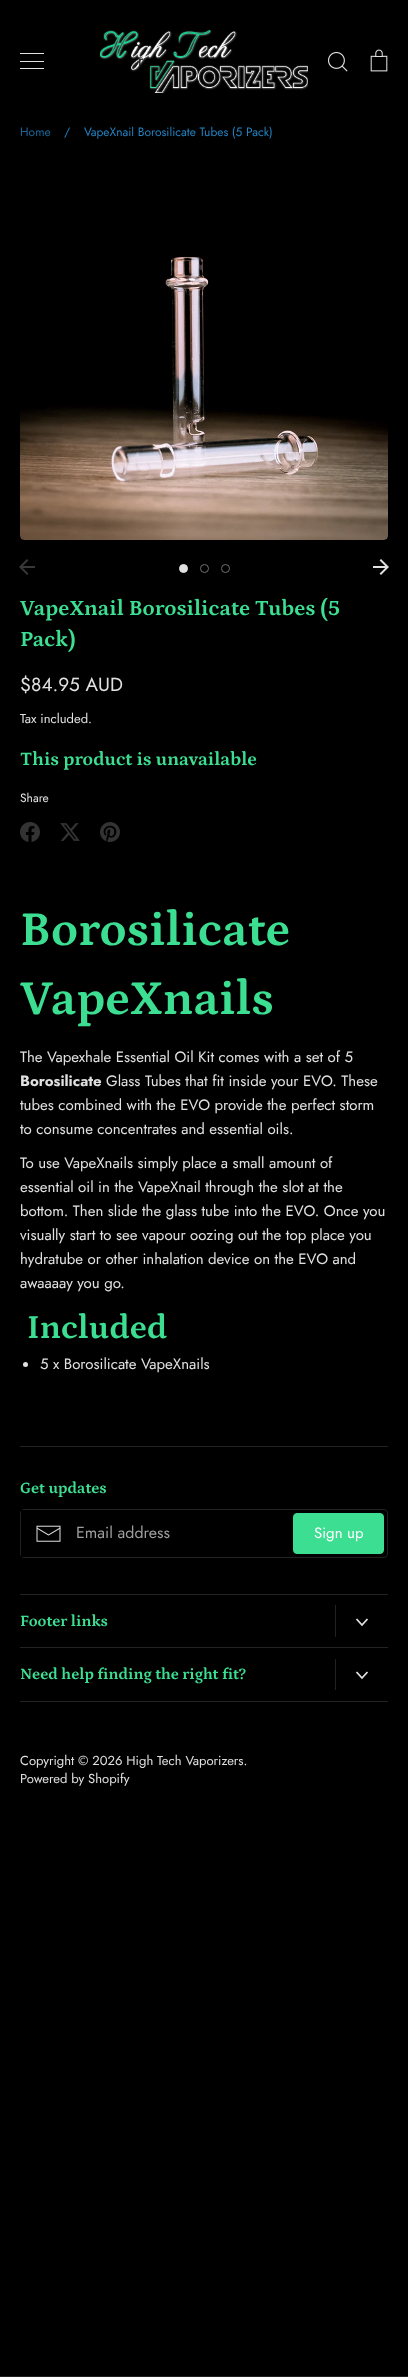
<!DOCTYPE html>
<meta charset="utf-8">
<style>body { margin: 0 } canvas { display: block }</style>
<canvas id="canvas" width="408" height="2377"></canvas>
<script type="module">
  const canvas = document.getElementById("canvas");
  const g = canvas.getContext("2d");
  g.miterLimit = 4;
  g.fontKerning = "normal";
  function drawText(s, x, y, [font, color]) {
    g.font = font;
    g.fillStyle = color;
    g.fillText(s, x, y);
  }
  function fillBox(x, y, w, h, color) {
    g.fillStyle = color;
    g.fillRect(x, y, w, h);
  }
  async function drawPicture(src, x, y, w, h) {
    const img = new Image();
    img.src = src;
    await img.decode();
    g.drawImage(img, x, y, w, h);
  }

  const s1 = ["16px Jost", "#0B0B0B"];
  const s2 = ["12px Jost", "#1C689A"];
  const s3 = ["12px Jost", "#2382C1"];
  const s4 = ["bold 22px Petrona", "#3CDE92"];
  const s5 = ["19px Jost", "#E1E1E1"];
  const s6 = ["13px Jost", "#E1E1E1"];
  const s7 = ["bold 19px Petrona", "#3CDE92"];
  const s8 = ["12px Jost", "#E1E1E1"];
  const s9 = ["bold 49px Petrona", "#3CDE92"];
  const s10 = ["15px Jost", "#E1E1E1"];
  const s11 = ["bold 15px Jost", "#E1E1E1"];
  const s12 = ["bold 34px Petrona", "#3CDE92"];
  const s13 = ["bold 16px Petrona", "#3CDE92"];
  const s14 = ["16px Jost", "#9E9E9E"];
  const s15 = ["15px Jost", "#FFFFFF"];

  fillBox(0, 0, 408, 2377, "#000000");
  fillBox(20, 53, 24, 1, "#E1E1E1");
  fillBox(20, 61, 24, 1, "#E1E1E1");
  fillBox(20, 68, 24, 1, "#E1E1E1");
  await drawPicture("pic1.png", 100, 30, 208, 63);
  drawText("r", 138, 66, s1);
  await drawPicture("pic2.png", 328, 52, 20, 20);
  await drawPicture("pic3.png", 370, 49, 18, 23);
  fillBox(0, 2376, 408, 1, "#222222");
  drawText("Home", 20, 136, s2);
  drawText("/", 64, 136, s3);
  drawText("VapeXnail Borosilicate Tubes (5 Pack)", 84, 136, s3);
  await drawPicture("pic4.png", 20, 256, 368, 284);
  await drawPicture("pic5.png", 19, 559, 16, 16);
  await drawPicture("pic6.png", 373, 559, 16, 16);
  g.fillStyle = "#E1E1E1";
  g.beginPath();
  g.arc(183.5, 568.5, 4, 0, Math.PI * 2);
  g.fill();
  g.strokeStyle = "#E1E1E1";
  g.stroke();
  g.beginPath();
  g.arc(204.5, 568.5, 4, 0, Math.PI * 2);
  g.strokeStyle = "#717171";
  g.stroke();
  g.beginPath();
  g.arc(225.5, 568.5, 4, 0, Math.PI * 2);
  g.stroke();
  drawText("VapeXnail Borosilicate Tubes (5", 20, 615, s4);
  drawText("Pack)", 20, 646, s4);
  drawText("$84.95 AUD", 20, 691, s5);
  drawText("Tax included.", 20, 723, s6);
  drawText("This product is unavailable", 20, 765, s7);
  drawText("Share", 20, 802, s8);
  await drawPicture("pic7.png", 20, 822, 20, 20);
  await drawPicture("pic8.png", 60, 823, 20, 18);
  await drawPicture("pic9.png", 100, 822, 20, 20);
  drawText("Borosilicate", 20, 945, s9);
  drawText("VapeXnails", 20, 1014, s9);
  drawText("The Vapexhale Essential Oil Kit comes with a set of 5", 20, 1062, s10);
  drawText("Borosilicate", 20, 1086, s11);
  drawText("Glass Tubes that fit inside your EVO. These", 106, 1086, s10);
  drawText("tubes combined with the EVO provide the perfect storm", 20, 1110, s10);
  drawText("to consume concentrates and essential oils.", 20, 1134, s10);
  drawText("To use VapeXnails simply place a small amount of", 20, 1168, s10);
  drawText("essential oil in the VapeXnail through the slot at the", 20, 1192, s10);
  drawText("bottom. Then slide the glass tube into the EVO. Once you", 20, 1216, s10);
  drawText("visually start to see vapour oozing out the top place you", 20, 1240, s10);
  drawText("hydratube or other inhalation device on the EVO and", 20, 1264, s10);
  drawText("awaaaay you go.", 20, 1288, s10);
  drawText("Included", 27, 1338, s12);
  g.fillStyle = "#E1E1E1";
  g.beginPath();
  g.arc(25.5, 1364.5, 2.5, 0, Math.PI * 2);
  g.fill();
  drawText("5 x Borosilicate VapeXnails", 40, 1369, s10);
  fillBox(20, 1446, 368, 1, "#222222");
  fillBox(20, 1594, 368, 1, "#222222");
  drawText("Get updates", 20, 1493, s13);
  g.beginPath();
  g.roundRect(20.5, 1509.5, 367, 48, 3.5);
  g.strokeStyle = "#222222";
  g.stroke();
  await drawPicture("pic10.png", 36, 1525, 25, 17);
  fillBox(21, 1510, 3, 47, "#000000");
  drawText("Email address", 76, 1538, s14);
  g.fillStyle = "#3CDE92";
  g.beginPath();
  g.roundRect(293.5, 1513.5, 90, 40, 3.5);
  g.fill();
  g.strokeStyle = "#3CDE92";
  g.stroke();
  drawText("Sign up", 314, 1538, s15);
  fillBox(20, 1647, 368, 1, "#222222");
  drawText("Footer links", 20, 1626, s13);
  fillBox(335, 1605, 1, 32, "#222222");
  g.beginPath();
  g.moveTo(356.5, 1619);
  g.lineTo(362, 1625);
  g.lineTo(367.5, 1619);
  g.moveTo(356.5, 1672);
  g.lineTo(362, 1678);
  g.lineTo(367.5, 1672);
  g.strokeStyle = "#E1E1E1";
  g.lineWidth = 1.8;
  g.stroke();
  fillBox(20, 1701, 368, 1, "#222222");
  drawText("Need help finding the right fit?", 20, 1679, s13);
  fillBox(335, 1659, 1, 31, "#222222");
  drawText("Copyright © 2026 High Tech Vaporizers.", 20, 1765, s6);
  drawText("Powered by Shopify", 20, 1783, s6);
</script>
